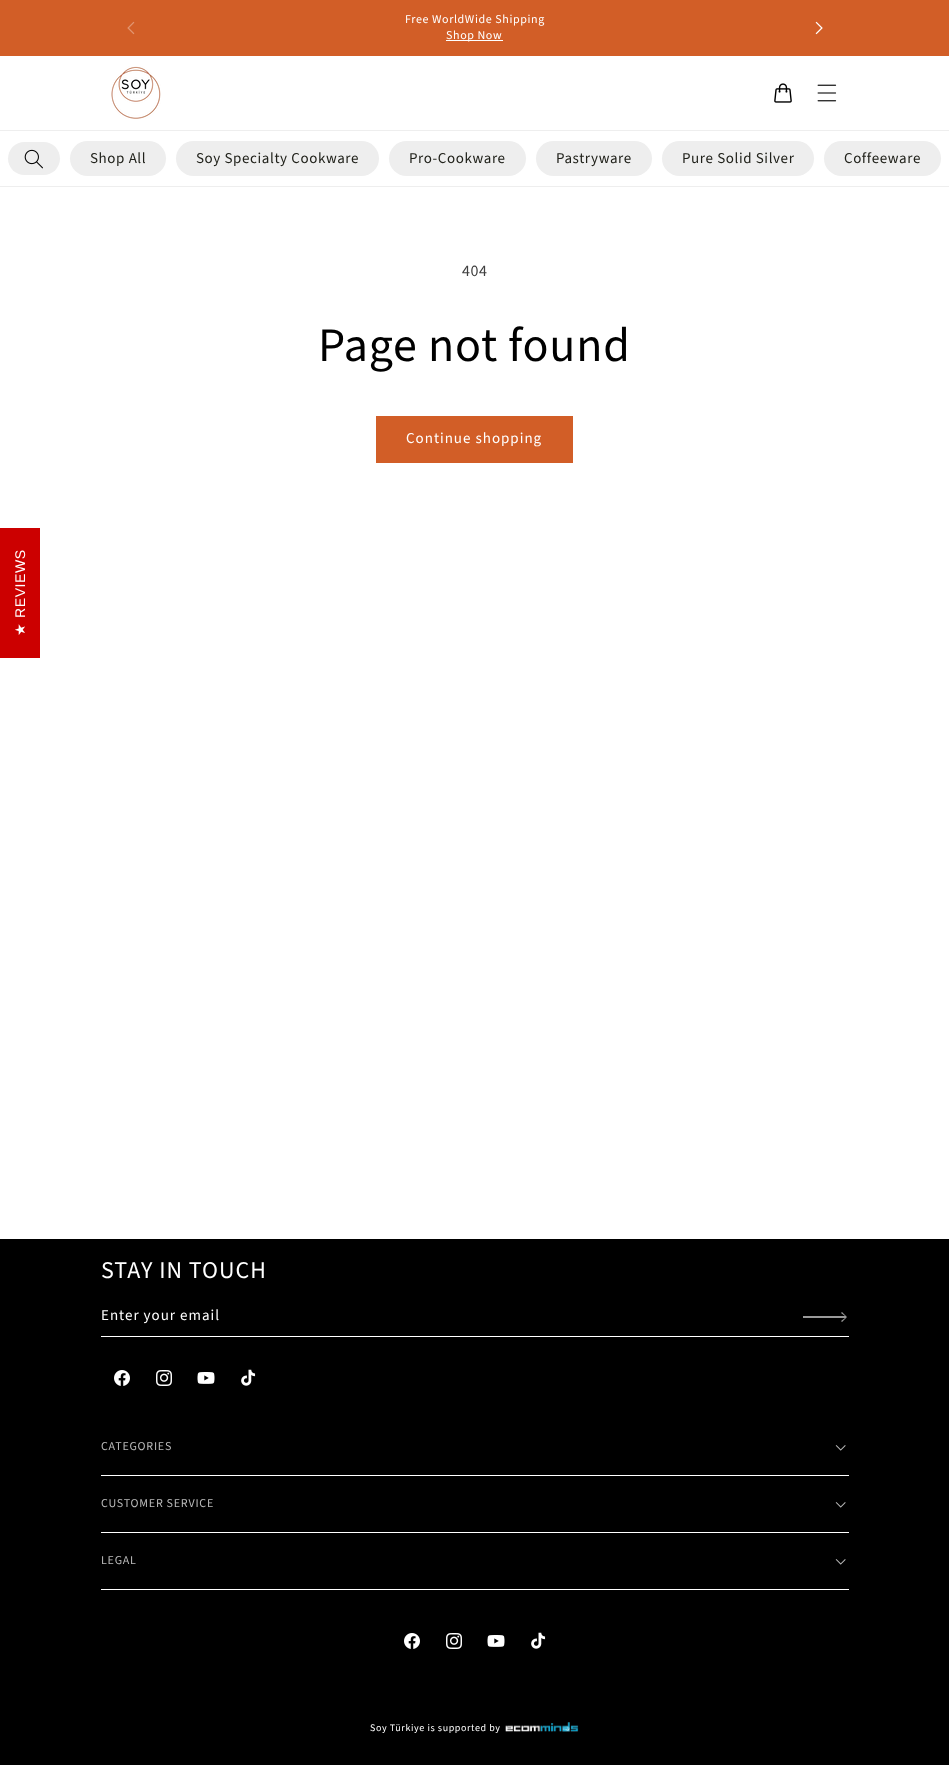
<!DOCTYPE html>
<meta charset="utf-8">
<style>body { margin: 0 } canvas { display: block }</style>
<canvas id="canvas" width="949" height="1765"></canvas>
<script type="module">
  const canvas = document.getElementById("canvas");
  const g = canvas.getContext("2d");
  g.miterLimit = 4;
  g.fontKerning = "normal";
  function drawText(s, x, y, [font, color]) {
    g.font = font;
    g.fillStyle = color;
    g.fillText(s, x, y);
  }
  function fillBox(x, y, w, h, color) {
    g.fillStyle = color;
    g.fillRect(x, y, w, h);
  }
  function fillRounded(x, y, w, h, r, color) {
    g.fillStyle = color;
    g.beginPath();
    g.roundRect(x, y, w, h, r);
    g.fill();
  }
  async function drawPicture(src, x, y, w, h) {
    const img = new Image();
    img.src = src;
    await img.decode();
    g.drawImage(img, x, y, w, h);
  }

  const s1 = ["12px Source Sans Pro", "#FFFFFF"];
  const s2 = ["15px Source Sans Pro", "#20211A"];
  const s3 = ["16px Source Sans Pro", "#404040"];
  const s4 = ["48px Source Sans Pro", "#000000"];
  const s5 = ["15px Source Sans Pro", "#FFFFFF"];
  const s6 = ["24px Source Sans Pro", "#FFFFFF"];
  const s7 = ["12px Source Sans Pro", "#BBBBBB"];
  const s8 = ["10px Source Sans Pro", "#FFFFFF"];

  fillBox(0, 0, 949, 1765, "#FFFFFF");
  fillBox(0, 0, 949, 56, "#D25E27");
  await drawPicture("pic1.png", 127, 21, 8, 14);
  g.letterSpacing = "0.6px";
  drawText("Free WorldWide Shipping", 405, 23, s1);
  fillBox(446, 40, 57, 1, "#FFFFFF");
  drawText("Shop Now", 446, 39, s1);
  await drawPicture("pic2.png", 815, 21, 8, 14);
  fillBox(0, 186, 949, 1, "#EEEEEE");
  await drawPicture("pic3.png", 111, 66, 50, 53);
  await drawPicture("pic4.png", 774, 83, 18, 20);
  await drawPicture("pic5.png", 817, 84, 20, 18);
  fillBox(0, 130, 949, 1, "#EEEEEE");
  fillRounded(8, 142, 52, 33, 16.5, "#EEEEEE");
  await drawPicture("pic6.png", 24, 149, 19, 20);
  fillRounded(70, 141, 96, 35, 17.5, "#EEEEEE");
  drawText("Shop All", 90, 163, s2);
  fillRounded(176, 141, 203, 35, 17.5, "#EEEEEE");
  drawText("Soy Specialty Cookware", 196, 163, s2);
  fillRounded(389, 141, 137, 35, 17.5, "#EEEEEE");
  drawText("Pro-Cookware", 409, 163, s2);
  fillRounded(536, 141, 116, 35, 17.5, "#EEEEEE");
  drawText("Pastryware", 556, 163, s2);
  fillRounded(662, 141, 152, 35, 17.5, "#EEEEEE");
  drawText("Pure Solid Silver", 682, 163, s2);
  fillRounded(824, 141, 117, 35, 17.5, "#EEEEEE");
  drawText("Coffeeware", 844, 163, s2);
  drawText("404", 462, 276, s3);
  g.letterSpacing = "0.75px";
  drawText("Page not found", 318, 361, s4);
  fillBox(376, 416, 197, 47, "#D25E27");
  g.letterSpacing = "1px";
  drawText("Continue shopping", 406, 443, s5);
  fillBox(0, 528, 40, 130, "#CC0000");
  g.letterSpacing = "0.6px";
  g.font = "14px Liberation Sans";
  g.fillStyle = "#FFFFFF";
  g.save();
  g.translate(25, 618);
  g.rotate(-90 * Math.PI / 180);
  g.fillText("REVIEWS", 0, 0);
  g.restore();
  g.font = "14px DejaVu Sans";
  g.save();
  g.translate(25, 636);
  g.rotate(-90 * Math.PI / 180);
  g.fillText("★", 0, 0);
  g.restore();
  fillBox(0, 1239, 949, 526, "#000000");
  g.letterSpacing = "1px";
  drawText("STAY IN TOUCH", 101, 1278, s6);
  fillBox(101, 1336, 748, 1, "#FFFFFF");
  drawText("Enter your email", 101, 1320, s5);
  g.fillStyle = "#999999";
  g.beginPath();
  g.moveTo(842, 1312);
  g.lineTo(841, 1313);
  g.lineTo(845, 1316);
  g.lineTo(803, 1316);
  g.lineTo(803, 1318);
  g.lineTo(845, 1318);
  g.lineTo(841, 1321);
  g.lineTo(842, 1322);
  g.lineTo(847, 1317);
  g.closePath();
  g.fill();
  await drawPicture("pic7.png", 114, 1370, 16, 16);
  await drawPicture("pic8.png", 156, 1370, 16, 16);
  await drawPicture("pic9.png", 197, 1372, 18, 12);
  await drawPicture("pic10.png", 241, 1369, 15, 17);
  fillBox(101, 1475, 748, 1, "#FFFFFF");
  g.letterSpacing = "0.75px";
  drawText("CATEGORIES", 101, 1450, s7);
  await drawPicture("pic11.png", 835, 1445, 11, 6);
  fillBox(101, 1532, 748, 1, "#FFFFFF");
  drawText("CUSTOMER SERVICE", 101, 1507, s7);
  await drawPicture("pic11.png", 835, 1502, 11, 6);
  fillBox(101, 1589, 748, 1, "#FFFFFF");
  drawText("LEGAL", 101, 1564, s7);
  await drawPicture("pic11.png", 835, 1559, 11, 6);
  await drawPicture("pic7.png", 404, 1633, 16, 16);
  await drawPicture("pic8.png", 446, 1633, 16, 16);
  await drawPicture("pic9.png", 487, 1635, 18, 12);
  await drawPicture("pic10.png", 531, 1632, 15, 17);
  g.letterSpacing = "0.6px";
  drawText("Soy Türkiye is supported by", 370, 1731, s8);
  await drawPicture("pic12.png", 505, 1722, 74, 10);
</script>
